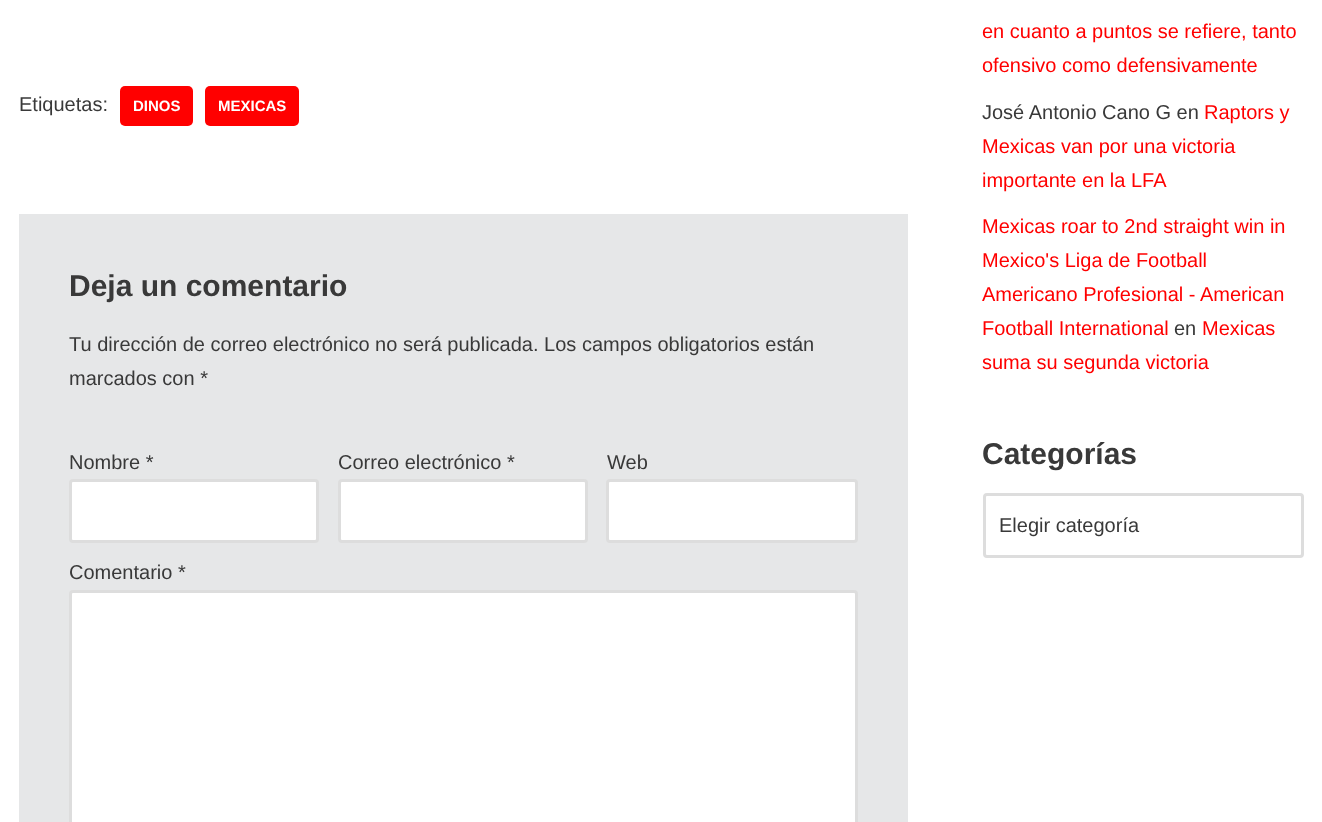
<!DOCTYPE html>
<meta charset="utf-8">
<style>body { margin: 0 } canvas { display: block }</style>
<canvas id="canvas" width="1322" height="822"></canvas>
<script type="module">
  const canvas = document.getElementById("canvas");
  const g = canvas.getContext("2d");
  g.miterLimit = 4;
  g.fontKerning = "normal";
  function drawText(s, x, y, [font, color]) {
    g.font = font;
    g.fillStyle = color;
    g.fillText(s, x, y);
  }
  function fillBox(x, y, w, h, color) {
    g.fillStyle = color;
    g.fillRect(x, y, w, h);
  }
  function fillRounded(x, y, w, h, r, color) {
    g.fillStyle = color;
    g.beginPath();
    g.roundRect(x, y, w, h, r);
    g.fill();
  }

  const s1 = ["20px Liberation Sans", "#393939"];
  const s2 = ["bold 15px Liberation Sans", "#FFFFFF"];
  const s3 = ["bold 30px Liberation Sans", "#393939"];
  const s4 = ["20px Liberation Sans", "#FF0000"];

  fillBox(0, 0, 1322, 822, "#FFFFFF");
  drawText("Etiquetas:", 19, 111, s1);
  fillRounded(120, 86, 73, 40, 5, "#FF0000");
  drawText("DINOS", 133, 111, s2);
  fillRounded(205, 86, 94, 40, 5, "#FF0000");
  drawText("MEXICAS", 218, 111, s2);
  fillBox(19, 214, 889, 608, "#E6E7E8");
  drawText("Deja un comentario", 69, 296, s3);
  drawText("Tu dirección de correo electrónico no será publicada. Los campos obligatorios están", 69, 351, s1);
  drawText("marcados con *", 69, 385, s1);
  drawText("Nombre *", 69, 469, s1);
  g.fillStyle = "#FFFFFF";
  g.beginPath();
  g.roundRect(70.5, 480.5, 247, 61, 2.5);
  g.fill();
  g.strokeStyle = "#DDDDDD";
  g.lineWidth = 3;
  g.stroke();
  drawText("Correo electrónico *", 338, 469, s1);
  g.fillStyle = "#FFFFFF";
  g.beginPath();
  g.roundRect(339.5, 480.5, 247, 61, 2.5);
  g.fill();
  g.stroke();
  drawText("Web", 607, 469, s1);
  g.fillStyle = "#FFFFFF";
  g.beginPath();
  g.roundRect(607.5, 480.5, 249, 61, 2.5);
  g.fill();
  g.stroke();
  drawText("Comentario *", 69, 579, s1);
  g.fillStyle = "#FFFFFF";
  g.beginPath();
  g.roundRect(70.5, 591.5, 786, 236, 2.5);
  g.fill();
  g.stroke();
  drawText("en cuanto a puntos se refiere, tanto", 982, 38, s4);
  drawText("ofensivo como defensivamente", 982, 72, s4);
  drawText("José Antonio Cano G en", 982, 119, s1);
  drawText("Raptors y", 1204, 119, s4);
  drawText("Mexicas van por una victoria", 982, 153, s4);
  drawText("importante en la LFA", 982, 187, s4);
  drawText("Mexicas roar to 2nd straight win in", 982, 233, s4);
  drawText("Mexico's Liga de Football", 982, 267, s4);
  drawText("Americano Profesional - American", 982, 301, s4);
  drawText("Football International", 982, 335, s4);
  drawText("en", 1174, 335, s1);
  drawText("Mexicas", 1202, 335, s4);
  drawText("suma su segunda victoria", 982, 369, s4);
  drawText("Categorías", 982, 464, s3);
  g.beginPath();
  g.roundRect(984.5, 494.5, 318, 62, 2.5);
  g.stroke();
  drawText("Elegir categoría", 999, 532, s1);
</script>
